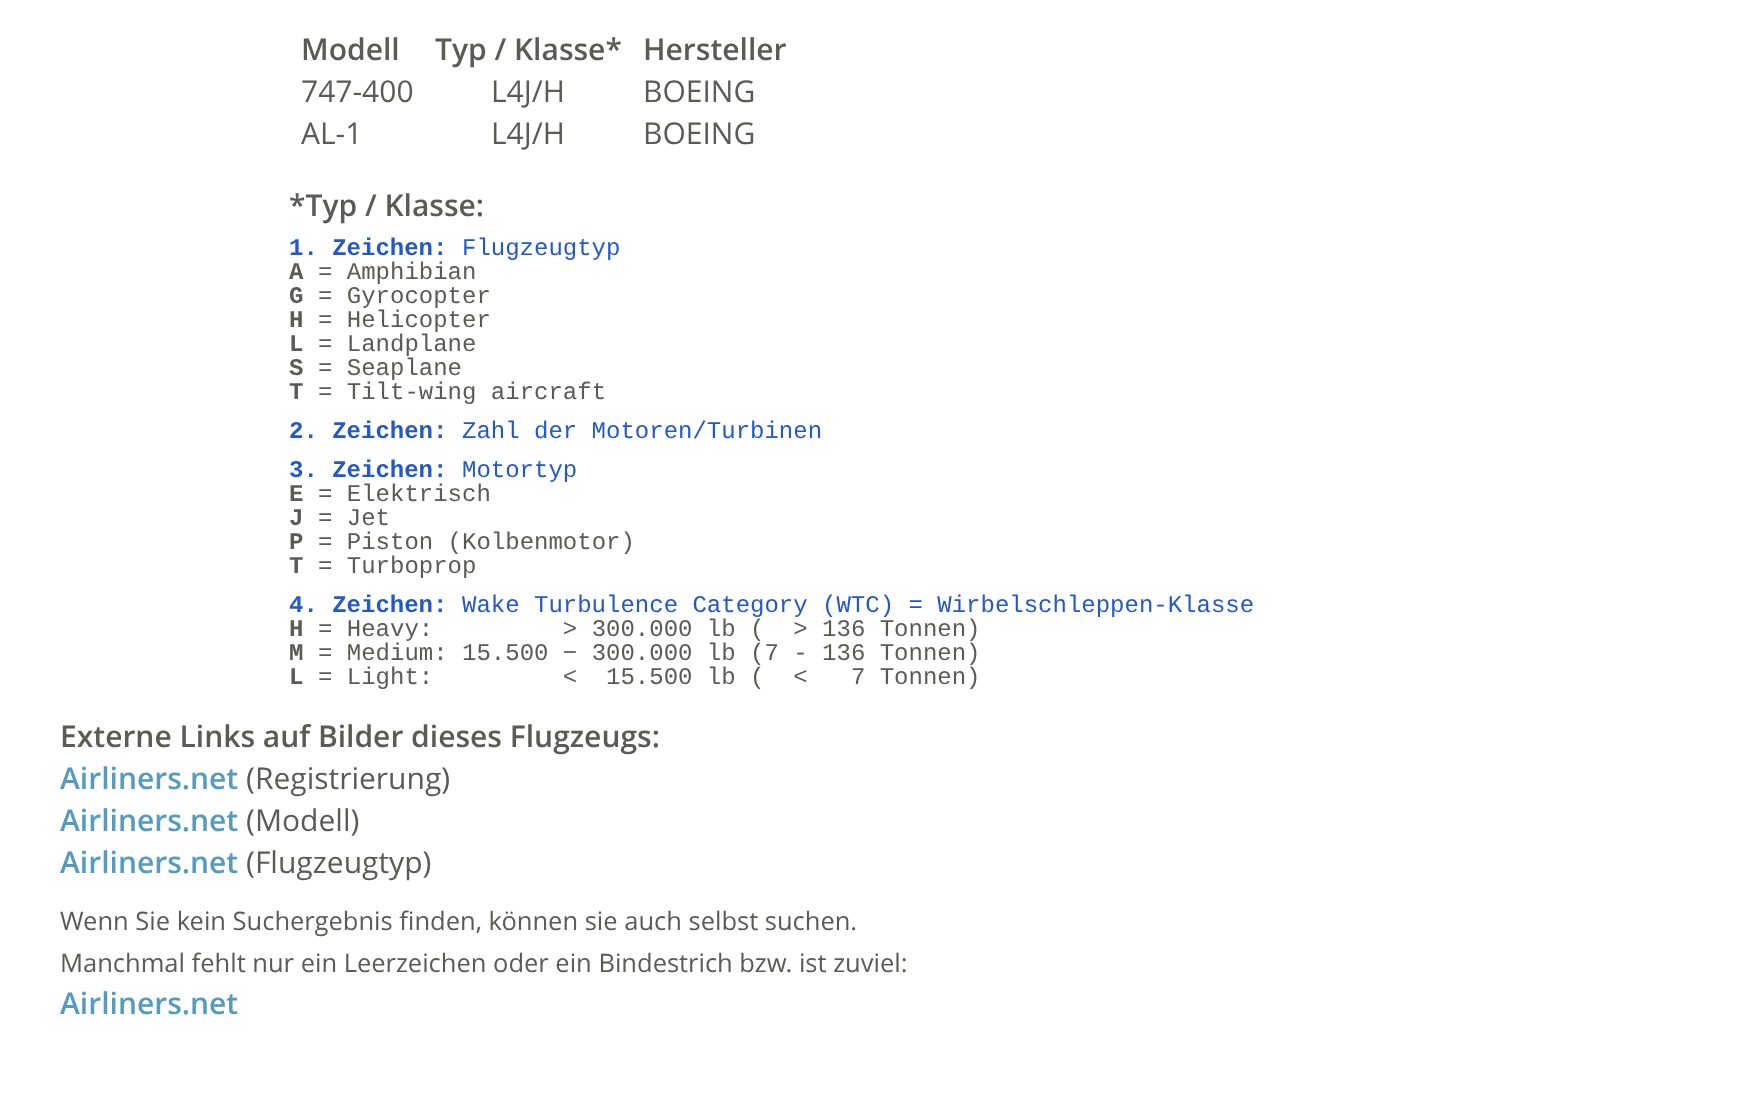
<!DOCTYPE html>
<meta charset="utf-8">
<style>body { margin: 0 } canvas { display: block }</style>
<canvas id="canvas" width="1751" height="1108"></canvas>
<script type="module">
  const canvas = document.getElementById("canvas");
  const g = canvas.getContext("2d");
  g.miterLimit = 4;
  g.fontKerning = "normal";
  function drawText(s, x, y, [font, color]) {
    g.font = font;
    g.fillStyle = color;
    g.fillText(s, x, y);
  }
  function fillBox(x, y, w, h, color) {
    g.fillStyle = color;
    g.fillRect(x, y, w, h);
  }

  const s1 = ["600 30px Open Sans", "#5C5A55"];
  const s2 = ["30px Open Sans", "#5C5A55"];
  const s3 = ["bold 24px Liberation Mono", "#2459C4"];
  const s4 = ["24px Liberation Mono", "#2459C4"];
  const s5 = ["bold 24px Liberation Mono", "#5C5A55"];
  const s6 = ["24px Liberation Mono", "#5C5A55"];
  const s7 = ["600 30px Open Sans", "#549BBF"];
  const s8 = ["25.5px Open Sans", "#5C5A55"];

  fillBox(0, 0, 1751, 1108, "#FFFFFF");
  drawText("Modell", 301, 60, s1);
  drawText("Typ / Klasse*", 435, 60, s1);
  drawText("Hersteller", 643, 60, s1);
  drawText("747-400", 301, 102, s2);
  drawText("L4J/H", 491, 102, s2);
  drawText("BOEING", 643, 102, s2);
  drawText("AL-1", 301, 144, s2);
  drawText("L4J/H", 491, 144, s2);
  drawText("BOEING", 643, 144, s2);
  drawText("*Typ / Klasse:", 289, 216, s1);
  drawText("1. Zeichen:", 289, 255, s3);
  drawText("Flugzeugtyp", 462, 255, s4);
  drawText("A", 289, 279, s5);
  drawText("= Amphibian", 318, 279, s6);
  drawText("G", 289, 303, s5);
  drawText("= Gyrocopter", 318, 303, s6);
  drawText("H", 289, 327, s5);
  drawText("= Helicopter", 318, 327, s6);
  drawText("L", 289, 351, s5);
  drawText("= Landplane", 318, 351, s6);
  drawText("S", 289, 375, s5);
  drawText("= Seaplane", 318, 375, s6);
  drawText("T", 289, 399, s5);
  drawText("= Tilt-wing aircraft", 318, 399, s6);
  drawText("2. Zeichen:", 289, 438, s3);
  drawText("Zahl der Motoren/Turbinen", 462, 438, s4);
  drawText("3. Zeichen:", 289, 477, s3);
  drawText("Motortyp", 462, 477, s4);
  drawText("E", 289, 501, s5);
  drawText("= Elektrisch", 318, 501, s6);
  drawText("J", 289, 525, s5);
  drawText("= Jet", 318, 525, s6);
  drawText("P", 289, 549, s5);
  drawText("= Piston (Kolbenmotor)", 318, 549, s6);
  drawText("T", 289, 573, s5);
  drawText("= Turboprop", 318, 573, s6);
  drawText("4. Zeichen:", 289, 612, s3);
  drawText("Wake Turbulence Category (WTC) = Wirbelschleppen-Klasse", 462, 612, s4);
  drawText("H", 289, 636, s5);
  drawText("= Heavy:         > 300.000 lb (  > 136 Tonnen)", 318, 636, s6);
  drawText("M", 289, 660, s5);
  drawText("= Medium: 15.500 − 300.000 lb (7 - 136 Tonnen)", 318, 660, s6);
  drawText("L", 289, 684, s5);
  drawText("= Light:         <  15.500 lb (  <   7 Tonnen)", 318, 684, s6);
  drawText("Externe Links auf Bilder dieses Flugzeugs:", 60, 747, s1);
  drawText("Airliners.net", 60, 789, s7);
  drawText("(Registrierung)", 246, 789, s2);
  drawText("Airliners.net", 60, 831, s7);
  drawText("(Modell)", 246, 831, s2);
  drawText("Airliners.net", 60, 873, s7);
  drawText("(Flugzeugtyp)", 246, 873, s2);
  drawText("Wenn Sie kein Suchergebnis finden, können sie auch selbst suchen.", 60, 930, s8);
  drawText("Manchmal fehlt nur ein Leerzeichen oder ein Bindestrich bzw. ist zuviel:", 60, 972, s8);
  drawText("Airliners.net", 60, 1014, s7);
</script>
